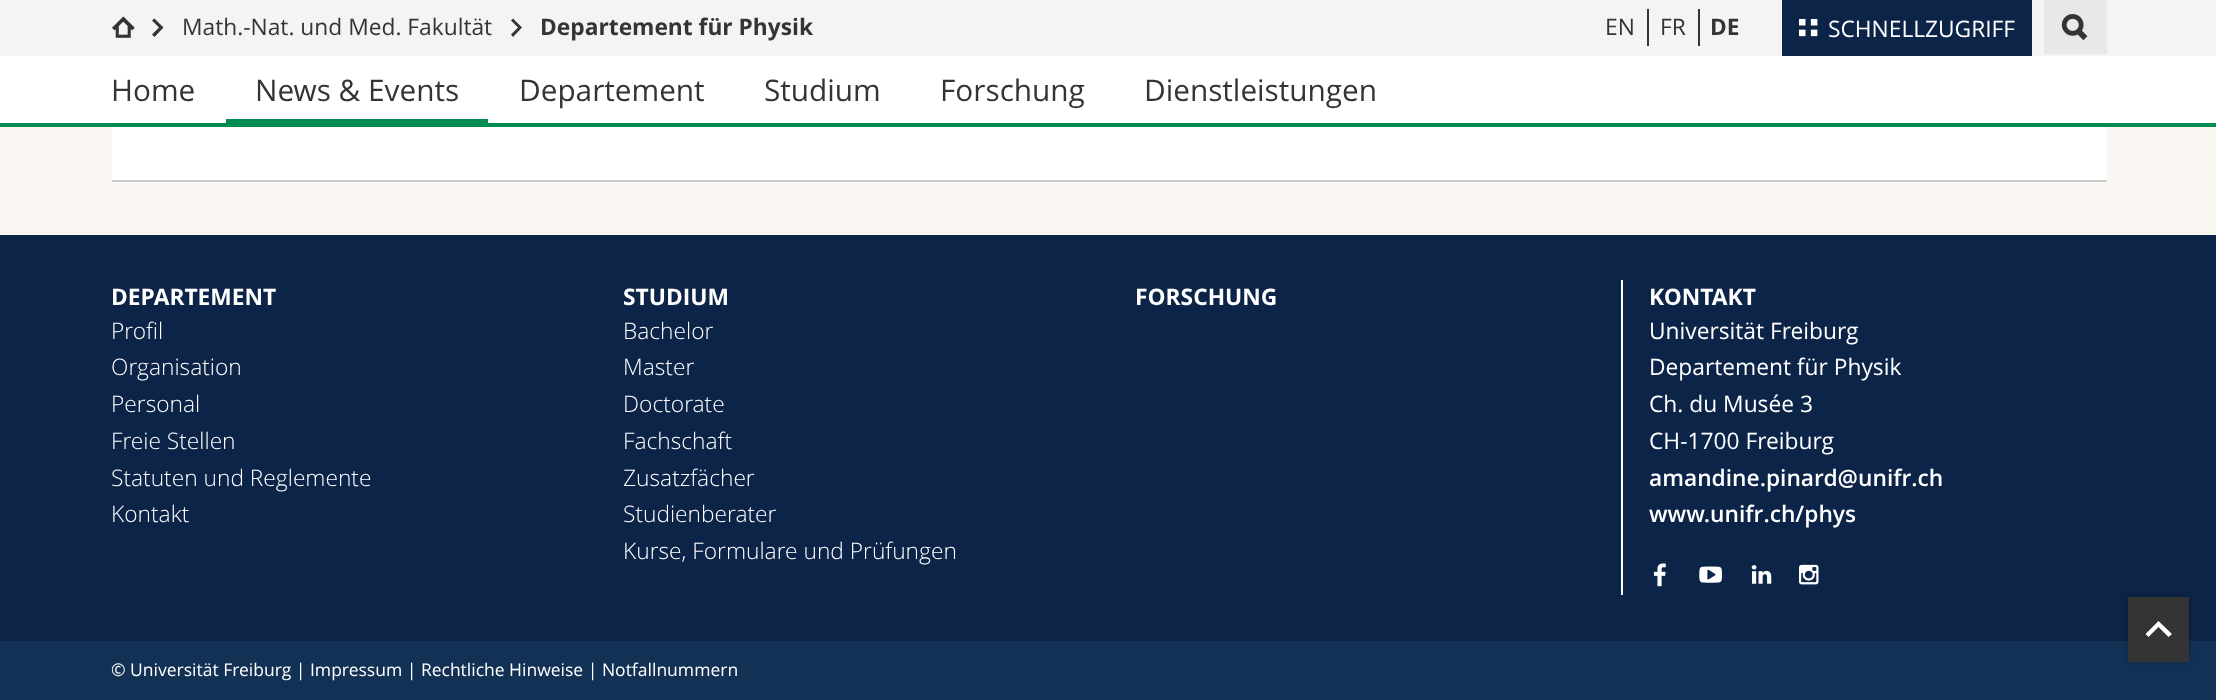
<!DOCTYPE html>
<meta charset="utf-8">
<style>body { margin: 0 } canvas { display: block }</style>
<canvas id="canvas" width="2216" height="700"></canvas>
<script type="module">
  const canvas = document.getElementById("canvas");
  const g = canvas.getContext("2d");
  g.miterLimit = 4;
  g.fontKerning = "normal";
  function drawText(s, x, y, [font, color]) {
    g.font = font;
    g.fillStyle = color;
    g.fillText(s, x, y);
  }
  function fillBox(x, y, w, h, color) {
    g.fillStyle = color;
    g.fillRect(x, y, w, h);
  }
  async function drawPicture(src, x, y, w, h) {
    const img = new Image();
    img.src = src;
    await img.decode();
    g.drawImage(img, x, y, w, h);
  }

  const s1 = ["22.75px Open Sans", "#343434"];
  const s2 = ["bold 22.75px Open Sans", "#343434"];
  const s3 = ["22.75px Open Sans", "#FFFFFF"];
  const s4 = ["29.75px Open Sans", "#343434"];
  const s5 = ["bold 22.75px Open Sans", "#FFFFFF"];
  const s6 = ["300 22.75px Open Sans", "#FFFFFF"];
  const s7 = ["600 22.75px Open Sans", "#FFFFFF"];
  const s8 = ["17.5px Open Sans", "#FFFFFF"];

  fillBox(0, 0, 2216, 700, "#FAF7F2");
  fillBox(0, 0, 2216, 56, "#F4F4F4");
  await drawPicture("pic1.png", 112, 16, 23, 22);
  g.fillStyle = "#343434";
  g.beginPath();
  g.moveTo(154.5, 18.5);
  g.lineTo(152, 20.5);
  g.lineTo(159, 27.5);
  g.lineTo(152, 34.5);
  g.lineTo(154.5, 37);
  g.lineTo(163.5, 27.5);
  g.closePath();
  g.fill();
  drawText("Math.-Nat. und Med. Fakultät", 182, 35, s1);
  g.beginPath();
  g.moveTo(513, 18.5);
  g.lineTo(511, 20.5);
  g.lineTo(518, 27.5);
  g.lineTo(511, 34.5);
  g.lineTo(513, 37);
  g.lineTo(522, 27.5);
  g.closePath();
  g.fill();
  drawText("Departement für Physik", 540, 35, s2);
  drawText("EN", 1605, 35, s1);
  fillBox(1647, 9, 2, 37, "#343434");
  drawText("FR", 1660, 35, s1);
  fillBox(1698, 9, 2, 37, "#343434");
  drawText("DE", 1710, 35, s2);
  fillBox(1782, 0, 250, 56, "#0C2447");
  await drawPicture("pic2.png", 1799, 18, 19, 19);
  drawText("SCHNELLZUGRIFF", 1828, 37, s3);
  fillBox(2044, 0, 63, 54, "#E8E8E8");
  await drawPicture("pic3.png", 2061, 14, 27, 27);
  fillBox(0, 56, 2216, 67, "#FFFFFF");
  drawText("Home", 111, 101, s4);
  drawText("News & Events", 255, 101, s4);
  fillBox(226, 119, 262, 4, "#008C50");
  drawText("Departement", 519, 101, s4);
  drawText("Studium", 764, 101, s4);
  drawText("Forschung", 940, 101, s4);
  drawText("Dienstleistungen", 1144, 101, s4);
  fillBox(0, 123, 2216, 4, "#008C50");
  fillBox(112, 127, 1995, 53, "#FFFFFF");
  fillBox(112, 180, 1995, 2, "#CBCBCB");
  fillBox(0, 235, 2216, 406, "#0C2447");
  drawText("DEPARTEMENT", 111, 305, s5);
  drawText("Profil", 111, 339, s6);
  drawText("Organisation", 111, 375, s6);
  drawText("Personal", 111, 412, s6);
  drawText("Freie Stellen", 111, 449, s6);
  drawText("Statuten und Reglemente", 111, 486, s6);
  drawText("Kontakt", 111, 522, s6);
  drawText("STUDIUM", 623, 305, s5);
  drawText("Bachelor", 623, 339, s6);
  drawText("Master", 623, 375, s6);
  drawText("Doctorate", 623, 412, s6);
  drawText("Fachschaft", 623, 449, s6);
  drawText("Zusatzfächer", 623, 486, s6);
  drawText("Studienberater", 623, 522, s6);
  drawText("Kurse, Formulare und Prüfungen", 623, 559, s6);
  drawText("FORSCHUNG", 1135, 305, s5);
  fillBox(1621, 280, 2, 315, "#FFFFFF");
  drawText("KONTAKT", 1649, 305, s5);
  drawText("Universität Freiburg", 1649, 339, s3);
  drawText("Departement für Physik", 1649, 375, s3);
  drawText("Ch. du Musée 3", 1649, 412, s3);
  drawText("CH-1700 Freiburg", 1649, 449, s3);
  drawText("amandine.pinard@unifr.ch", 1649, 486, s7);
  drawText("www.unifr.ch/phys", 1649, 522, s7);
  await drawPicture("pic4.png", 1653, 563, 13, 24);
  await drawPicture("pic5.png", 1699, 566, 23, 17);
  await drawPicture("pic6.png", 1751, 565, 21, 19);
  await drawPicture("pic7.png", 1799, 564, 20, 21);
  fillBox(0, 641, 2216, 59, "#123154");
  drawText("© Universität Freiburg | Impressum | Rechtliche Hinweise | Notfallnummern", 111, 676, s8);
  g.fillStyle = "rgba(0, 0, 0, 0.25)";
  g.filter = "blur(2px)";
  g.beginPath();
  g.rect(2128, 597, 61, 65);
  g.fill();
  g.filter = "none";
  fillBox(2128, 597, 61, 65, "#343434");
  g.fillStyle = "#FFFFFF";
  g.beginPath();
  g.moveTo(2145.5, 634);
  g.lineTo(2148.5, 637);
  g.lineTo(2158.5, 627);
  g.lineTo(2168.5, 637);
  g.lineTo(2172, 634);
  g.lineTo(2158.5, 621);
  g.closePath();
  g.fill();
</script>
